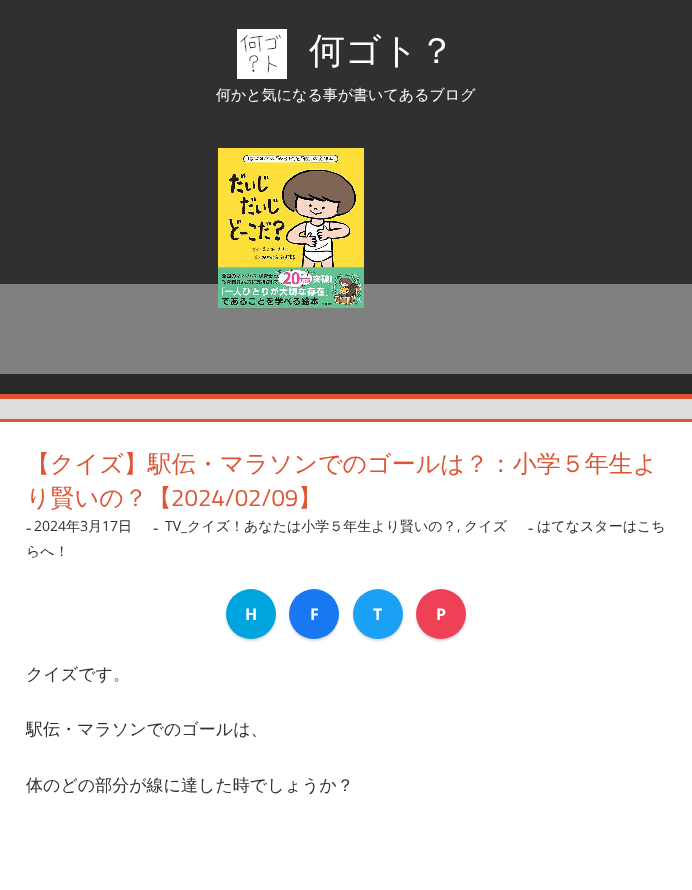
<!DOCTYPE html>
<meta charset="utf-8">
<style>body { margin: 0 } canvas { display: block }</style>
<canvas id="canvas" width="692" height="890"></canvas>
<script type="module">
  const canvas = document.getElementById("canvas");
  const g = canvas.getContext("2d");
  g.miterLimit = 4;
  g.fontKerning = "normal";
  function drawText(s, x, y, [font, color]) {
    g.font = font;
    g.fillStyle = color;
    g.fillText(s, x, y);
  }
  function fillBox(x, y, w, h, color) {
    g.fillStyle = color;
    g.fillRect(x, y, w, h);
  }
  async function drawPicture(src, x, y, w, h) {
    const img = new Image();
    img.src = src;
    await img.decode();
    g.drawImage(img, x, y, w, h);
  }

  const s1 = ["500 36px WenQuanYi Zen Hei", "#FFFFFF"];
  const s2 = ["500 15px WenQuanYi Zen Hei", "#FFFFFF"];
  const s3 = ["500 24px WenQuanYi Zen Hei", "#DD5533"];
  const s4 = ["24px Titillium Web", "#DD5533"];
  const s5 = ["16px Liberation Serif", "#303030"];
  const s6 = ["14px Open Sans", "#303030"];
  const s7 = ["500 14px WenQuanYi Zen Hei", "#303030"];
  const s8 = ["bold 16px Open Sans", "#FFFFFF"];
  const s9 = ["500 17px WenQuanYi Zen Hei", "#303030"];

  fillBox(0, 0, 692, 890, "#DDDDDD");
  fillBox(0, 0, 692, 284, "#303030");
  await drawPicture("pic1.png", 237, 29, 50, 50);
  drawText("何ゴト？", 309, 63, s1);
  drawText("何かと気になる事が書いてあるブログ", 216, 100, s2);
  fillBox(0, 284, 692, 90, "#808080");
  await drawPicture("pic2.png", 218, 148, 146, 160);
  fillBox(0, 375, 692, 19, "#292929");
  fillBox(0, 374, 692, 1, "#272727");
  fillBox(0, 394, 692, 5, "#DD5533");
  fillBox(0, 422, 692, 468, "#FFFFFF");
  fillBox(0, 419, 692, 3, "#DD5533");
  drawText("【クイズ】駅伝・マラソンでのゴールは？：小学５年生よ", 26, 472, s3);
  drawText("り賢いの？【", 26, 506, s3);
  drawText("2024/02/09", 171, 506, s4);
  drawText("】", 298, 506, s3);
  drawText("-", 26, 533, s5);
  drawText("2024", 34, 531, s6);
  drawText("年", 66, 531, s7);
  drawText("3", 80, 531, s6);
  drawText("月", 88, 531, s7);
  drawText("17", 102, 531, s6);
  drawText("日", 118, 531, s7);
  drawText("-", 153, 533, s5);
  drawText("TV_", 165, 531, s6);
  drawText("クイズ！あなたは小学５年生より賢いの？", 187, 531, s7);
  drawText(",", 457, 531, s6);
  drawText("クイズ", 464, 531, s7);
  drawText("-", 528, 533, s5);
  drawText("はてなスターはこち", 537, 531, s7);
  drawText("らへ！", 26, 556, s7);
  g.fillStyle = "rgba(0, 0, 0, 0.16)";
  g.filter = "blur(1px)";
  g.beginPath();
  g.roundRect(226, 591, 50, 50, 25);
  g.fill();
  g.filter = "none";
  g.fillStyle = "#00A4DE";
  g.beginPath();
  g.arc(251, 614, 25, 0, Math.PI * 2);
  g.fill();
  drawText("H", 245, 620, s8);
  g.fillStyle = "rgba(0, 0, 0, 0.16)";
  g.filter = "blur(1px)";
  g.beginPath();
  g.roundRect(289, 591, 50, 50, 25);
  g.fill();
  g.filter = "none";
  g.fillStyle = "#1778F2";
  g.beginPath();
  g.arc(314, 614, 25, 0, Math.PI * 2);
  g.fill();
  drawText("F", 310, 620, s8);
  g.fillStyle = "rgba(0, 0, 0, 0.16)";
  g.filter = "blur(1px)";
  g.beginPath();
  g.roundRect(353, 591, 50, 50, 25);
  g.fill();
  g.filter = "none";
  g.fillStyle = "#1BA1F3";
  g.beginPath();
  g.arc(378, 614, 25, 0, Math.PI * 2);
  g.fill();
  drawText("T", 373, 620, s8);
  g.fillStyle = "rgba(0, 0, 0, 0.16)";
  g.filter = "blur(1px)";
  g.beginPath();
  g.roundRect(416, 591, 50, 50, 25);
  g.fill();
  g.filter = "none";
  g.fillStyle = "#EF4155";
  g.beginPath();
  g.arc(441, 614, 25, 0, Math.PI * 2);
  g.fill();
  drawText("P", 436, 620, s8);
  drawText("クイズです。", 26, 680, s9);
  drawText("駅伝・マラソンでのゴールは、", 26, 735, s9);
  drawText("体のどの部分が線に達した時でしょうか？", 26, 791, s9);
</script>
